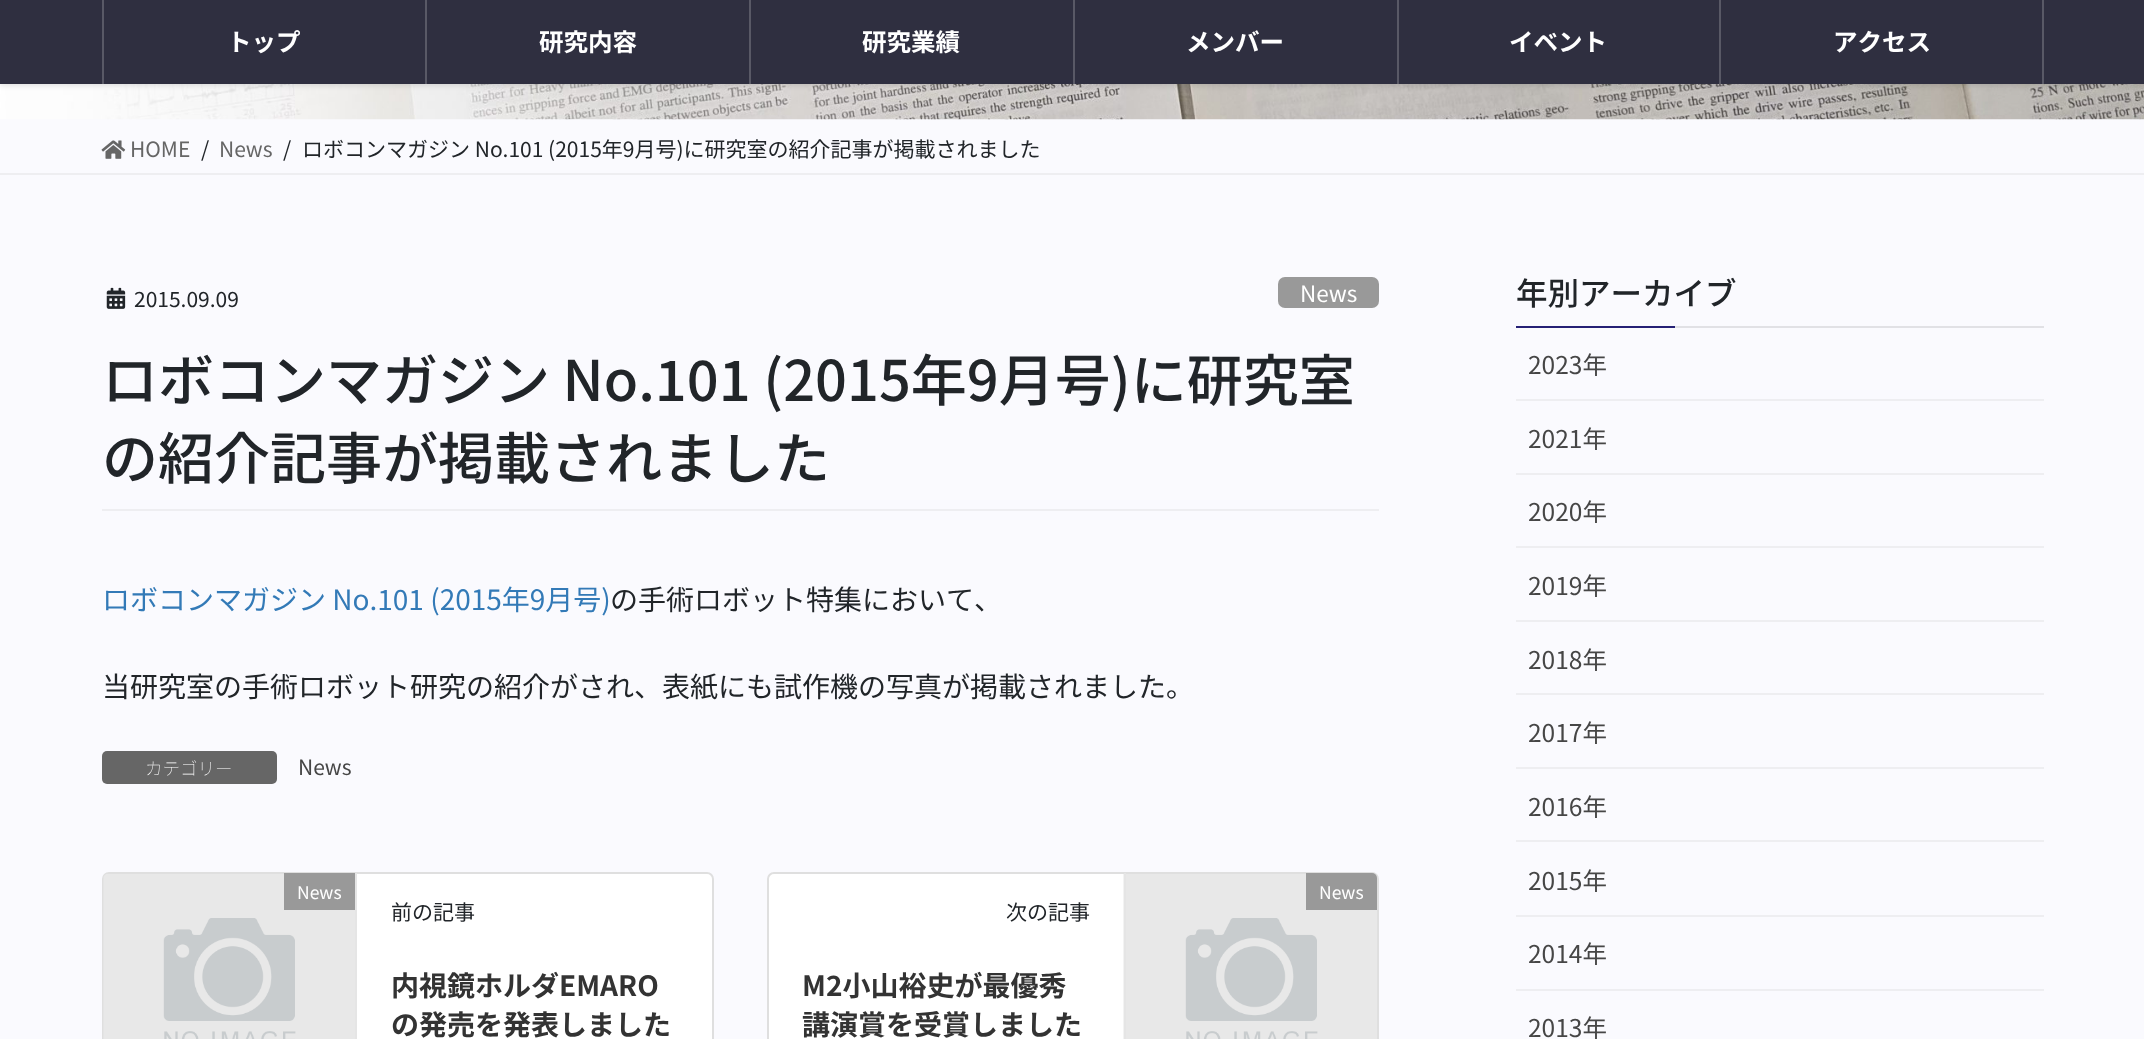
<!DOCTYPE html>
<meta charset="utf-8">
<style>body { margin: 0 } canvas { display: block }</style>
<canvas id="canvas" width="2144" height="1039"></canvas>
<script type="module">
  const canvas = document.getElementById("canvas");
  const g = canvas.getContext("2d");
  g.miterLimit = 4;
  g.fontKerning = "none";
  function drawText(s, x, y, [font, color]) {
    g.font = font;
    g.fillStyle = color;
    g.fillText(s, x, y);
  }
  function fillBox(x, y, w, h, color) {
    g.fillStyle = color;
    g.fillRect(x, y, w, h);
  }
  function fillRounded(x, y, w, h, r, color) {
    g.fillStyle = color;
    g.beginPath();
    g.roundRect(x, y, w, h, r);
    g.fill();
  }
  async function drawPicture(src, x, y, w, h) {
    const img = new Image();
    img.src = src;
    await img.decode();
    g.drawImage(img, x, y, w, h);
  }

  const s1 = ["bold 24.5px Noto Sans JP", "#FFFFFF"];
  const s2 = ["21px Noto Sans JP", "#666666"];
  const s3 = ["21px Noto Sans JP", "#212529"];
  const s4 = ["22.5px Noto Sans JP", "#FFFFFF"];
  const s5 = ["500 56px Noto Sans JP", "#212529"];
  const s6 = ["28px Noto Sans JP", "#337AB7"];
  const s7 = ["28px Noto Sans JP", "#212529"];
  const s8 = ["100 17.5px Noto Sans JP", "#FFFFFF"];
  const s9 = ["21px Noto Sans JP", "#464646"];
  const s10 = ["17.5px Noto Sans JP", "#FFFFFF"];
  const s11 = ["bold 28px Noto Sans JP", "#333333"];
  const s12 = ["500 31.5px Noto Sans JP", "#212529"];
  const s13 = ["24.5px Noto Sans JP", "#464646"];

  fillBox(0, 0, 2144, 1039, "#FAFAFE");
  await drawPicture("pic1.png", 0, 84, 2144, 36);
  g.fillStyle = "rgba(0, 0, 0, 0.1)";
  g.filter = "blur(2.5px)";
  g.beginPath();
  g.rect(0, 2, 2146, 84);
  g.fill();
  g.filter = "none";
  fillBox(0, 0, 2144, 84, "#2F2F40");
  fillBox(102, 0, 2, 84, "#595966");
  drawText("トップ", 227, 51, s1);
  fillBox(425, 0, 2, 84, "#595966");
  drawText("研究内容", 539, 51, s1);
  fillBox(749, 0, 2, 84, "#595966");
  drawText("研究業績", 862, 51, s1);
  fillBox(1073, 0, 2, 84, "#595966");
  drawText("メンバー", 1186, 51, s1);
  fillBox(1397, 0, 2, 84, "#595966");
  drawText("イベント", 1509, 51, s1);
  fillBox(2042, 0, 2, 84, "#595966");
  fillBox(1719, 0, 2, 84, "#595966");
  drawText("アクセス", 1833, 51, s1);
  fillBox(0, 173, 2144, 2, "#EEEEF1");
  await drawPicture("pic2.png", 101, 140, 25, 19);
  drawText("HOME", 130, 157, s2);
  drawText("/", 201, 157, s3);
  drawText("News", 219, 157, s2);
  drawText("/", 283, 157, s3);
  drawText("ロボコンマガジン No.101 (2015年9月号)に研究室の紹介記事が掲載されました", 302, 157, s3);
  fillBox(102, 509, 1277, 2, "#EEEEF1");
  await drawPicture("pic3.png", 106, 287, 20, 22);
  drawText("2015.09.09", 134, 307, s3);
  fillRounded(1278, 277, 101, 31, 7, "#999999");
  drawText("News", 1300, 302, s4);
  drawText("ロボコンマガジン No.101 (2015年9月号)に研究室", 102, 401, s5);
  drawText("の紹介記事が掲載されました", 102, 479, s5);
  drawText("ロボコンマガジン No.101 (2015年9月号)", 102, 610, s6);
  drawText("の手術ロボット特集において、", 610, 610, s7);
  drawText("当研究室の手術ロボット研究の紹介がされ、表紙にも試作機の写真が掲載されました。", 102, 697, s7);
  fillRounded(102, 751, 175, 33, 5, "#666666");
  drawText("カテゴリー", 145, 775, s8);
  drawText("News", 298, 775, s9);
  g.fillStyle = "#FFFFFF";
  g.beginPath();
  g.roundRect(103, 873, 610, 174, 6);
  g.fill();
  g.strokeStyle = "#DFDFDF";
  g.lineWidth = 2;
  g.stroke();
  await drawPicture("pic4.png", 103, 874, 252, 165);
  fillBox(355, 873, 2, 166, "#E5E5E5");
  fillBox(284, 873, 71, 37, "#999999");
  drawText("News", 297, 899, s10);
  drawText("前の記事", 391, 920, s3);
  drawText("内視鏡ホルダEMARO", 391, 996, s11);
  drawText("の発売を発表しました", 391, 1035, s11);
  g.fillStyle = "#FFFFFF";
  g.beginPath();
  g.roundRect(768, 873, 610, 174, 6);
  g.fill();
  g.stroke();
  await drawPicture("pic5.png", 1123, 874, 254, 165);
  fillBox(1124, 873, 2, 166, "#E5E5E5");
  g.fillStyle = "#999999";
  g.beginPath();
  g.roundRect(1306, 873, 71, 37, [0, 5, 0, 0]);
  g.fill();
  drawText("News", 1319, 899, s10);
  drawText("次の記事", 1006, 920, s3);
  drawText("M2小山裕史が最優秀", 802, 996, s11);
  drawText("講演賞を受賞しました", 802, 1035, s11);
  fillBox(1675, 326, 369, 2, "#E1E1E5");
  drawText("年別アーカイブ", 1516, 305, s12);
  fillBox(1516, 326, 159, 2, "#252075");
  fillBox(1516, 399, 528, 2, "#EEEEF1");
  drawText("2023年", 1528, 374, s13);
  fillBox(1516, 473, 528, 2, "#EEEEF1");
  drawText("2021年", 1528, 448, s13);
  fillBox(1516, 546, 528, 2, "#EEEEF1");
  drawText("2020年", 1528, 521, s13);
  fillBox(1516, 620, 528, 2, "#EEEEF1");
  drawText("2019年", 1528, 595, s13);
  fillBox(1516, 693, 528, 2, "#EEEEF1");
  drawText("2018年", 1528, 669, s13);
  fillBox(1516, 767, 528, 2, "#EEEEF1");
  drawText("2017年", 1528, 742, s13);
  fillBox(1516, 840, 528, 2, "#EEEEF1");
  drawText("2016年", 1528, 816, s13);
  fillBox(1516, 915, 528, 2, "#EEEEF1");
  drawText("2015年", 1528, 890, s13);
  fillBox(1516, 989, 528, 2, "#EEEEF1");
  drawText("2014年", 1528, 963, s13);
  drawText("2013年", 1528, 1037, s13);
</script>
